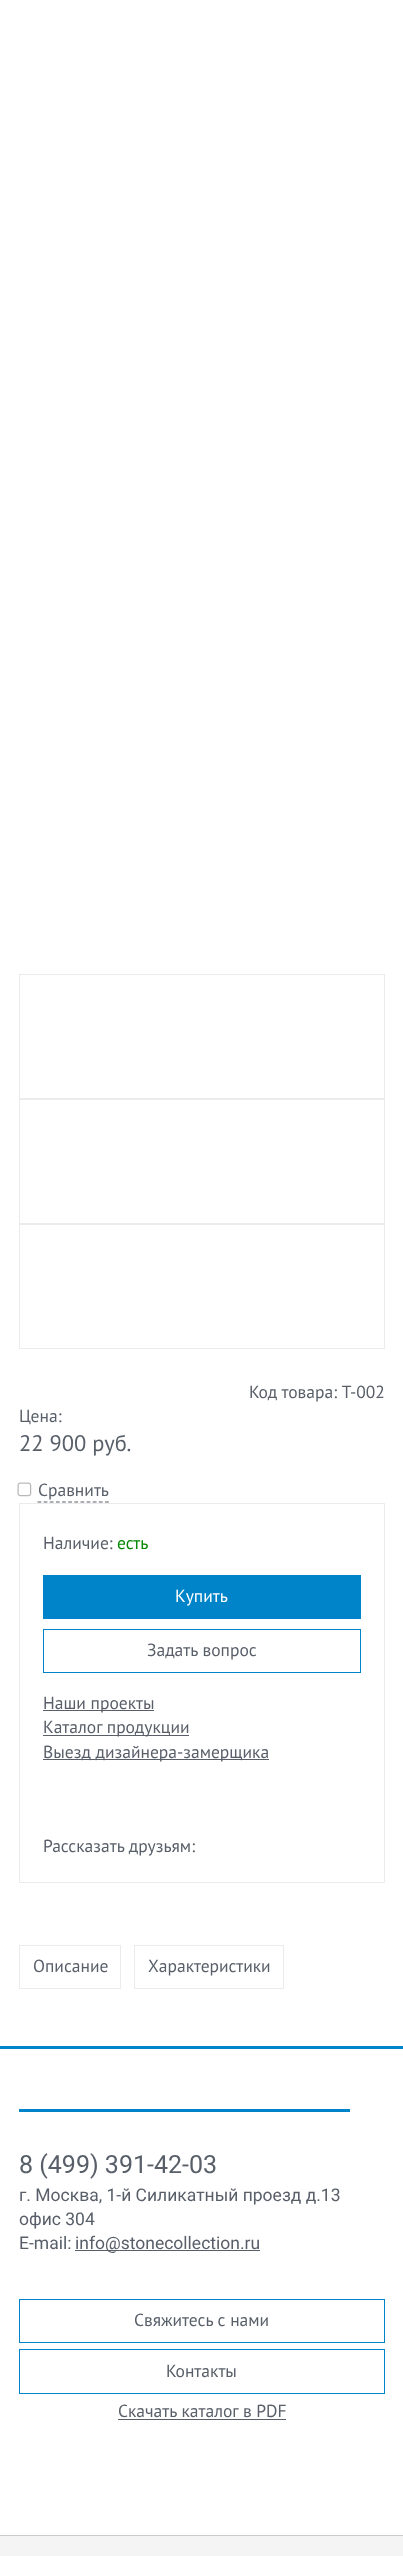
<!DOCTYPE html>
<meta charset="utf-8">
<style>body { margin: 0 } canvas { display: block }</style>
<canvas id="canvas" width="403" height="2556"></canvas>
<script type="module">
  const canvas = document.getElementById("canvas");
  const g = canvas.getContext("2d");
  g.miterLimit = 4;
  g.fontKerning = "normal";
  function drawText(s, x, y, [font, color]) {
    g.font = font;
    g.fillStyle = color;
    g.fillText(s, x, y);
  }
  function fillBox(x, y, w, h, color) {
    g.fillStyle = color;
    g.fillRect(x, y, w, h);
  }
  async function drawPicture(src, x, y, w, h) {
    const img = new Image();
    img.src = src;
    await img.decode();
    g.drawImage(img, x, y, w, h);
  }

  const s1 = ["17.5px PT Sans", "#585F69"];
  const s2 = ["22.5px PT Sans", "#585F69"];
  const s3 = ["17.5px PT Sans", "#008800"];
  const s4 = ["17.5px PT Sans", "#FFFFFF"];
  const s5 = ["25px Roboto", "#585F69"];
  const s6 = ["17.5px Roboto", "#585F69"];

  fillBox(0, 0, 403, 2556, "#FFFFFF");
  g.strokeStyle = "#EBEBEB";
  g.strokeRect(19.5, 974.5, 365, 124);
  g.strokeRect(19.5, 1099.5, 365, 124);
  g.strokeRect(19.5, 1224.5, 365, 124);
  drawText("Код товара: T-002", 249, 1398, s1);
  drawText("Цена:", 19, 1422, s1);
  drawText("22 900 руб.", 19, 1451, s2);
  await drawPicture("pic1.png", 17, 1482, 15, 15);
  drawText("Сравнить", 38, 1496, s1);
  g.beginPath();
  g.moveTo(37.5, 1502);
  g.lineTo(109, 1502);
  g.strokeStyle = "#585F69";
  g.lineWidth = 1.2;
  g.setLineDash([3.75, 2.39]);
  g.stroke();
  g.strokeStyle = "#EBEBEB";
  g.lineWidth = 1;
  g.setLineDash([]);
  g.strokeRect(19.5, 1503.5, 365, 379);
  drawText("Наличие:", 43, 1549, s1);
  drawText("есть", 117, 1549, s3);
  fillBox(43, 1575, 318, 44, "#0084C9");
  drawText("Купить", 175, 1602, s4);
  g.strokeStyle = "#0084C9";
  g.strokeRect(43.5, 1629.5, 317, 43);
  drawText("Задать вопрос", 147, 1656, s1);
  fillBox(43, 1710, 111, 1, "#585F69");
  drawText("Наши проекты", 43, 1709, s1);
  fillBox(43, 1735, 146, 1, "#585F69");
  drawText("Каталог продукции", 43, 1733, s1);
  fillBox(43, 1759, 226, 1, "#585F69");
  drawText("Выезд дизайнера-замерщика", 43, 1758, s1);
  drawText("Рассказать друзьям:", 43, 1852, s1);
  g.strokeStyle = "#EBEBEB";
  g.strokeRect(19.5, 1945.5, 101, 43);
  drawText("Описание", 33, 1972, s1);
  g.strokeRect(134.5, 1945.5, 149, 43);
  drawText("Характеристики", 148, 1972, s1);
  fillBox(0, 2046, 403, 3, "#0084C9");
  fillBox(19, 2109, 331, 3, "#0084C9");
  drawText("8 (499) 391-42-03", 19, 2173, s5);
  drawText("г. Москва, 1-й Силикатный проезд д.13", 19, 2201, s6);
  drawText("офис 304", 19, 2225, s6);
  drawText("E-mail:", 19, 2249, s6);
  fillBox(75, 2250, 185, 1, "#585F69");
  drawText("info@stonecollection.ru", 75, 2249, s6);
  g.strokeStyle = "#0084C9";
  g.strokeRect(19.5, 2299.5, 365, 43);
  drawText("Свяжитесь с нами", 134, 2326, s1);
  g.strokeRect(19.5, 2349.5, 365, 44);
  drawText("Контакты", 166, 2377, s1);
  drawText("Скачать каталог в PDF", 118, 2417, s1);
  fillBox(118, 2419, 168, 1, "#585F69");
  fillBox(0, 2536, 403, 20, "#F4F4F4");
  fillBox(0, 2535, 403, 1, "#CACACA");
</script>
